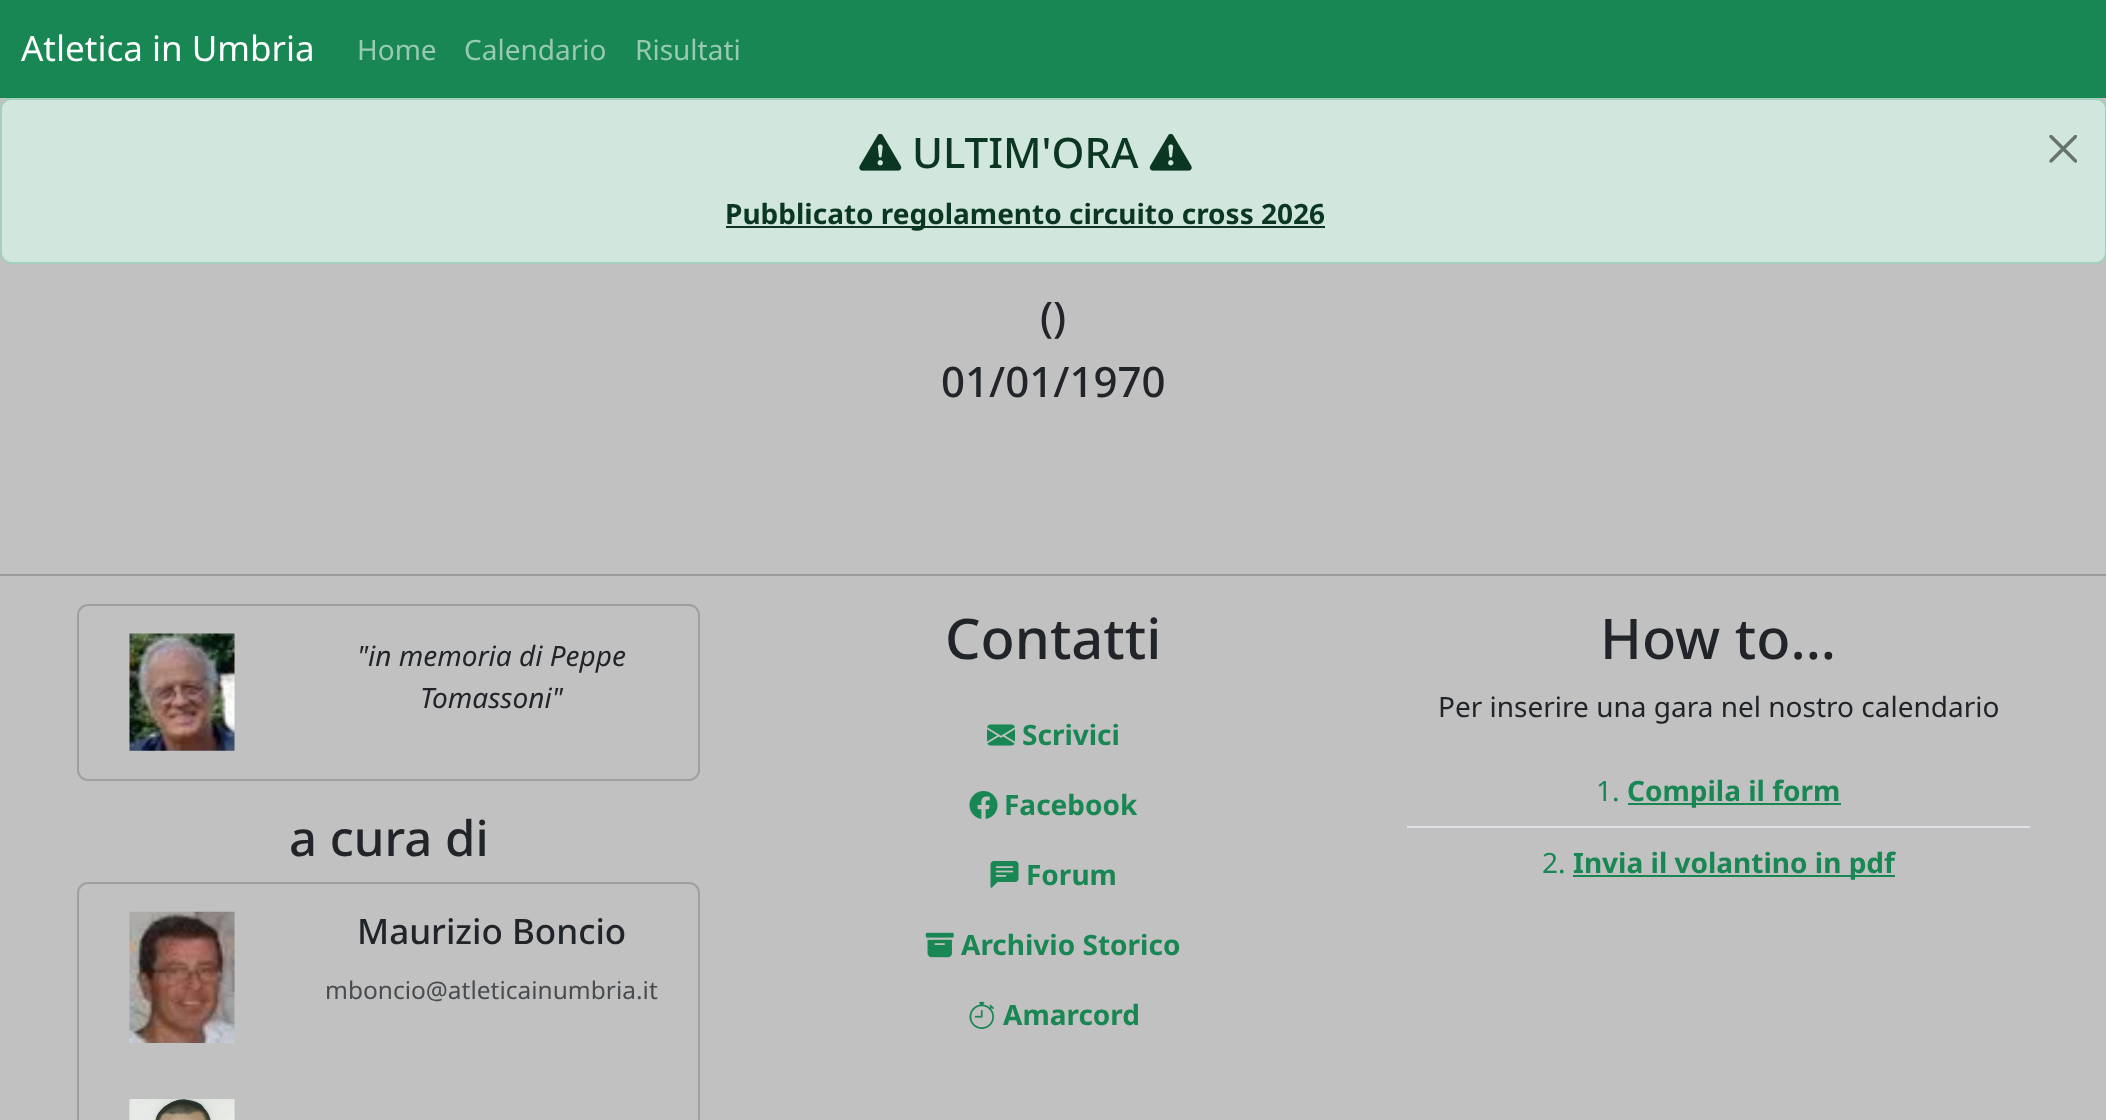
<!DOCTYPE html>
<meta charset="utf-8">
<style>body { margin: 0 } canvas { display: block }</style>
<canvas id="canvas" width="2106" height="1120"></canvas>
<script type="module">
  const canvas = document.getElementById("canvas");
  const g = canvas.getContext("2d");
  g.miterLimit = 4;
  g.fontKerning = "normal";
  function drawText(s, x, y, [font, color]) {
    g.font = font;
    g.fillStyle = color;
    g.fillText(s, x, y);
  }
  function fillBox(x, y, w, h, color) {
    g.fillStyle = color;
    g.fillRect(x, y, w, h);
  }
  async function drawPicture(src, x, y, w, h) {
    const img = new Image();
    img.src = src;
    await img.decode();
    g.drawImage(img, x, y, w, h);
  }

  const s1 = ["35px Noto Sans", "#FFFFFF"];
  const s2 = ["28px Noto Sans", "#98C9B2"];
  const s3 = ["500 42px Noto Sans", "#0A3622"];
  const s4 = ["bold 28px Noto Sans", "#0A3622"];
  const s5 = ["500 42px Noto Sans", "#212529"];
  const s6 = ["italic 28px Noto Sans", "#212529"];
  const s7 = ["500 49px Noto Sans", "#212529"];
  const s8 = ["500 35px Noto Sans", "#212529"];
  const s9 = ["24.5px Noto Sans", "#494C4F"];
  const s10 = ["500 56px Noto Sans", "#212529"];
  const s11 = ["bold 28px Noto Sans", "#198754"];
  const s12 = ["28px Noto Sans", "#212529"];
  const s13 = ["28px Noto Sans", "#198754"];

  fillBox(0, 0, 2106, 1120, "#198754");
  drawText("Atletica in Umbria", 21, 61, s1);
  drawText("Home", 357, 60, s2);
  drawText("Calendario", 464, 60, s2);
  drawText("Risultati", 635, 60, s2);
  fillBox(0, 98, 2106, 1022, "#C1C1C1");
  g.fillStyle = "#D1E7DD";
  g.beginPath();
  g.roundRect(1, 99, 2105, 164, 10);
  g.fill();
  g.strokeStyle = "#A3CFBB";
  g.lineWidth = 2;
  g.stroke();
  await drawPicture("pic1.png", 859, 133, 43, 38);
  drawText("ULTIM'ORA", 912, 168, s3);
  await drawPicture("pic2.png", 1149, 133, 43, 38);
  await drawPicture("pic3.png", 2049, 135, 28, 28);
  fillBox(726, 226, 599, 2, "#0A3622");
  drawText("Pubblicato regolamento circuito cross 2026", 725, 224, s4);
  drawText("()", 1040, 332, s5);
  drawText("01/01/1970", 941, 397, s5);
  fillBox(0, 574, 2106, 2, "#999A9B");
  g.beginPath();
  g.roundRect(78, 605, 621, 175, 10);
  g.strokeStyle = "#9F9F9F";
  g.stroke();
  await drawPicture("pic4.png", 129, 633, 106, 118);
  drawText("\"in memoria di Peppe", 357, 666, s6);
  drawText("Tomassoni\"", 420, 708, s6);
  drawText("a cura di", 289, 856, s7);
  g.beginPath();
  g.roundRect(78, 883, 621, 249, 10);
  g.stroke();
  await drawPicture("pic5.png", 129, 911, 106, 132);
  drawText("Maurizio Boncio", 357, 944, s8);
  drawText("mboncio@atleticainumbria.it", 325, 999, s9);
  await drawPicture("pic6.png", 129, 1099, 106, 21);
  drawText("Contatti", 945, 659, s10);
  await drawPicture("pic7.png", 987, 724, 28, 22);
  drawText("Scrivici", 1022, 745, s11);
  await drawPicture("pic8.png", 969, 791, 29, 28);
  drawText("Facebook", 1004, 815, s11);
  await drawPicture("pic9.png", 990, 861, 29, 27);
  drawText("Forum", 1026, 885, s11);
  await drawPicture("pic10.png", 925, 932, 29, 26);
  drawText("Archivio Storico", 961, 955, s11);
  await drawPicture("pic11.png", 969, 1001, 25, 28);
  drawText("Amarcord", 1003, 1025, s11);
  drawText("How to...", 1600, 659, s10);
  drawText("Per inserire una gara nel nostro calendario", 1438, 717, s12);
  fillBox(1407, 826, 623, 2, "#DEE2E6");
  drawText("1.", 1596, 801, s13);
  fillBox(1628, 803, 213, 2, "#198754");
  drawText("Compila il form", 1627, 801, s11);
  drawText("2.", 1542, 873, s13);
  fillBox(1573, 875, 322, 2, "#198754");
  drawText("Invia il volantino in pdf", 1573, 873, s11);
</script>
